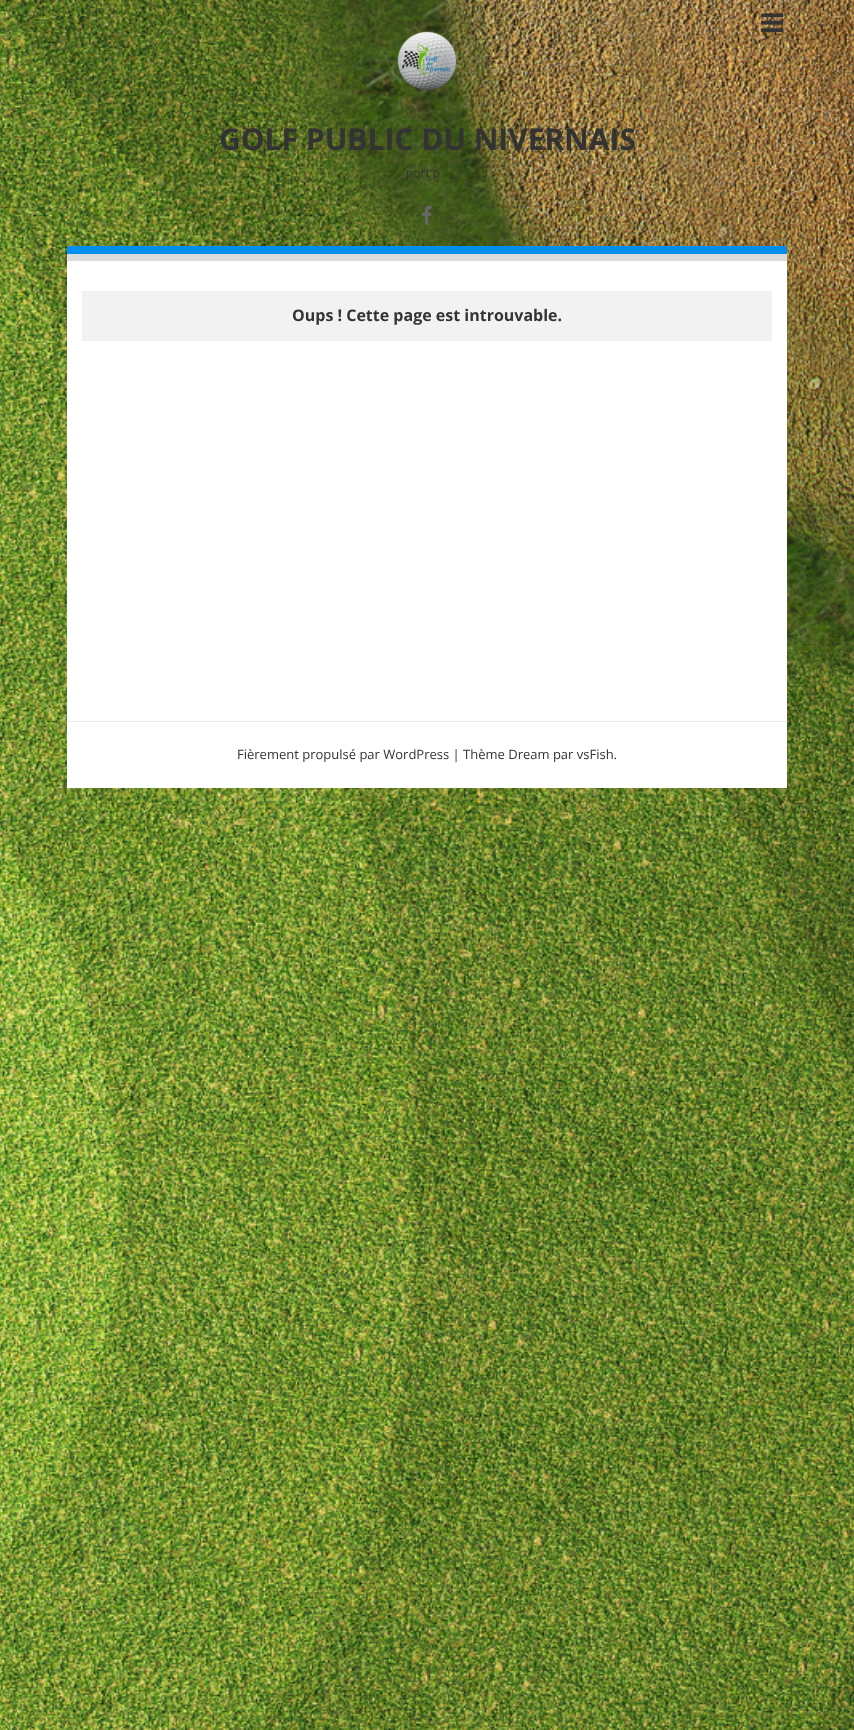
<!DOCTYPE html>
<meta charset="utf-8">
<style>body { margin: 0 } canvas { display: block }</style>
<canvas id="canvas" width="854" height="1730"></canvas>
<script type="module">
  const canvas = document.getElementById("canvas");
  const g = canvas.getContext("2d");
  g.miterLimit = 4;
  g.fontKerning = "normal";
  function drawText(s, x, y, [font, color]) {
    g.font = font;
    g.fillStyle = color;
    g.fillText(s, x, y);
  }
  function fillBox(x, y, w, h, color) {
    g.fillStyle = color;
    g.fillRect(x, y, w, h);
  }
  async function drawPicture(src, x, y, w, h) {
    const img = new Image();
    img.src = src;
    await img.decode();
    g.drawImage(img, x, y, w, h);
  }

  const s1 = ["bold 30px Open Sans", "#333333"];
  const s2 = ["12px Open Sans", "#333333"];
  const s3 = ["bold 16px Open Sans", "#333333"];
  const s4 = ["13px Open Sans", "#333333"];

  fillBox(0, 0, 854, 1730, "#FFFFFF");
  await drawPicture("pic1.png", 0, 0, 854, 1730);
  await drawPicture("pic2.png", 761, 13, 23, 19);
  await drawPicture("pic3.png", 397, 31, 60, 60);
  drawText("GOLF PUBLIC DU NIVERNAIS", 219, 150, s1);
  drawText("port p", 406, 177, s2);
  drawText("s", 482, 177, s2);
  await drawPicture("pic4.png", 422, 205, 10, 20);
  g.fillStyle = "#008FEF";
  g.beginPath();
  g.moveTo(70, 246);
  g.bezierCurveTo(66, 246, 67, 251, 67, 254);
  g.lineTo(787, 254);
  g.bezierCurveTo(787, 251, 787, 247, 785, 246);
  g.closePath();
  g.fill();
  fillBox(67, 254, 720, 7, "#DCDCDC");
  fillBox(67, 261, 720, 460, "#FFFFFF");
  fillBox(82, 291, 690, 50, "#F2F2F2");
  drawText("Oups ! Cette page est introuvable.", 292, 321, s3);
  fillBox(67, 722, 720, 66, "#FFFFFF");
  fillBox(67, 721, 720, 1, "#EBEDED");
  drawText("Fièrement propulsé par WordPress | Thème Dream par vsFish.", 237, 759, s4);
</script>
